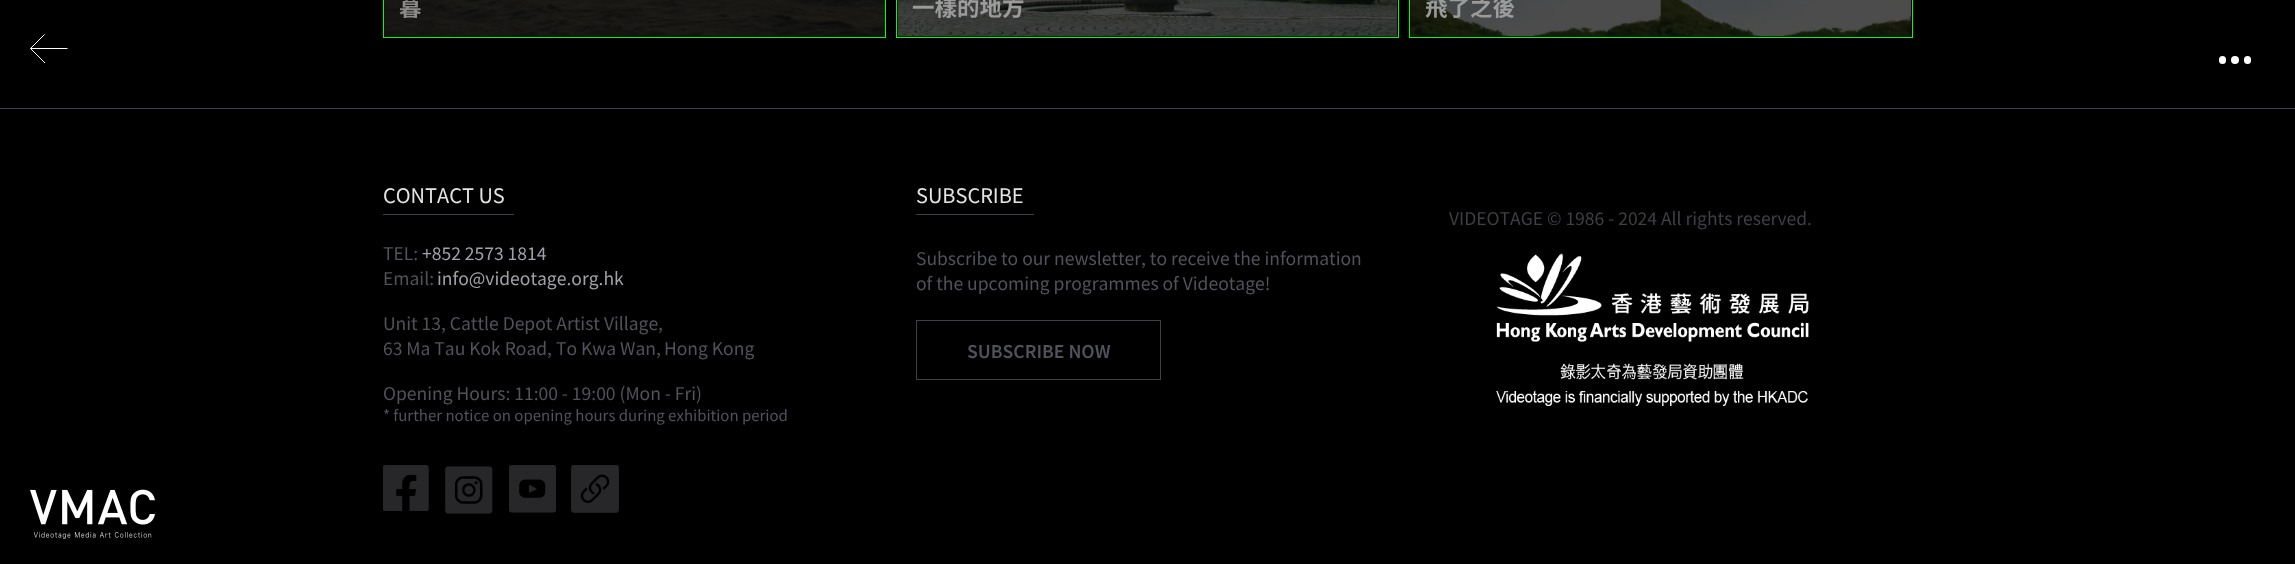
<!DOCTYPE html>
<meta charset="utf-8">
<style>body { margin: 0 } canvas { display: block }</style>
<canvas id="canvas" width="2295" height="564"></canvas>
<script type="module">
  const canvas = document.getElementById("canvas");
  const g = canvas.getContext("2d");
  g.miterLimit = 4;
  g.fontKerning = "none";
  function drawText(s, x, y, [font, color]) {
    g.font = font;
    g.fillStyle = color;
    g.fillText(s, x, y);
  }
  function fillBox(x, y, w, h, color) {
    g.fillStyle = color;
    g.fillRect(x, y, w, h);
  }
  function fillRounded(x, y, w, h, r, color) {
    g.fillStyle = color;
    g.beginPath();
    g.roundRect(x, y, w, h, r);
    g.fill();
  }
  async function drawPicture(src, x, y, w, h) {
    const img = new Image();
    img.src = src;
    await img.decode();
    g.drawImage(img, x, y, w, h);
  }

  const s1 = ["bold 22.5px Noto Sans TC", "#8B8A89"];
  const s2 = ["bold 22.5px Noto Sans TC", "#9A9B9A"];
  const s3 = ["20px Noto Sans TC", "#E4E4E7"];
  const s4 = ["17.5px Noto Sans TC", "#52525B"];
  const s5 = ["17.5px Noto Sans TC", "#A1A1AA"];
  const s6 = ["15px Noto Sans TC", "#52525B"];
  const s7 = ["600 17.5px Noto Sans TC", "#52525B"];
  const s8 = ["17.5px Noto Sans TC", "#3F3F46"];

  fillBox(0, 0, 2295, 564, "#000000");
  g.strokeStyle = "#00FF00";
  g.strokeRect(383.5, -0.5, 502, 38);
  await drawPicture("pic1.png", 384, 0, 501, 37);
  drawText("暮", 399, 16, s1);
  g.strokeRect(896.5, -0.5, 502, 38);
  await drawPicture("pic2.png", 897, 0, 501, 37);
  drawText("一樣的地方", 912, 16, s2);
  g.strokeRect(1409.5, -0.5, 503, 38);
  await drawPicture("pic3.png", 1410, 0, 501, 37);
  drawText("飛了之後", 1425, 16, s2);
  g.beginPath();
  g.moveTo(45, 63);
  g.lineTo(30.5, 48.5);
  g.lineTo(44.5, 34.5);
  g.moveTo(67.5, 48.5);
  g.lineTo(30.5, 48.5);
  g.strokeStyle = "#FFFFFF";
  g.stroke();
  fillRounded(2219, 56, 7, 8, 3.5, "#FFFFFF");
  g.beginPath();
  g.arc(2235, 60, 4, 0, Math.PI * 2);
  g.fill();
  fillRounded(2244, 56, 7, 8, 3.5, "#FFFFFF");
  fillBox(0, 108, 2295, 1, "#3F3F46");
  fillBox(383, 214, 131, 1, "#3F3F46");
  drawText("CONTACT US", 383, 203, s3);
  drawText("TEL:", 383, 260, s4);
  drawText("+852 2573 1814", 422, 260, s5);
  drawText("Email:", 383, 285, s4);
  drawText("info@videotage.org.hk", 437, 285, s5);
  drawText("Unit 13, Cattle Depot Artist Village,", 383, 330, s4);
  drawText("63 Ma Tau Kok Road, To Kwa Wan,", 383, 355, s4);
  drawText("Hong Kong", 664, 355, s4);
  drawText("Opening Hours: 11:00 - 19:00 (Mon - Fri)", 383, 400, s4);
  drawText("* further notice on opening hours during exhibition period", 383, 421, s6);
  await drawPicture("pic4.png", 383, 465, 46, 46);
  await drawPicture("pic5.png", 445, 466, 48, 48);
  await drawPicture("pic6.png", 509, 465, 47, 48);
  await drawPicture("pic7.png", 571, 465, 48, 48);
  fillBox(916, 214, 118, 1, "#3F3F46");
  drawText("SUBSCRIBE", 916, 203, s3);
  drawText("Subscribe to our newsletter, to receive the information", 916, 265, s4);
  drawText("of the upcoming programmes of Videotage!", 916, 290, s4);
  g.strokeStyle = "#3F3F46";
  g.strokeRect(916.5, 320.5, 244, 59);
  drawText("SUBSCRIBE NOW", 967, 358, s7);
  drawText("VIDEOTAGE © 1986 - 2024 All rights reserved.", 1449, 225, s8);
  await drawPicture("pic8.png", 1496, 253, 313, 153);
  await drawPicture("pic9.png", 30, 489, 125, 50);
</script>
